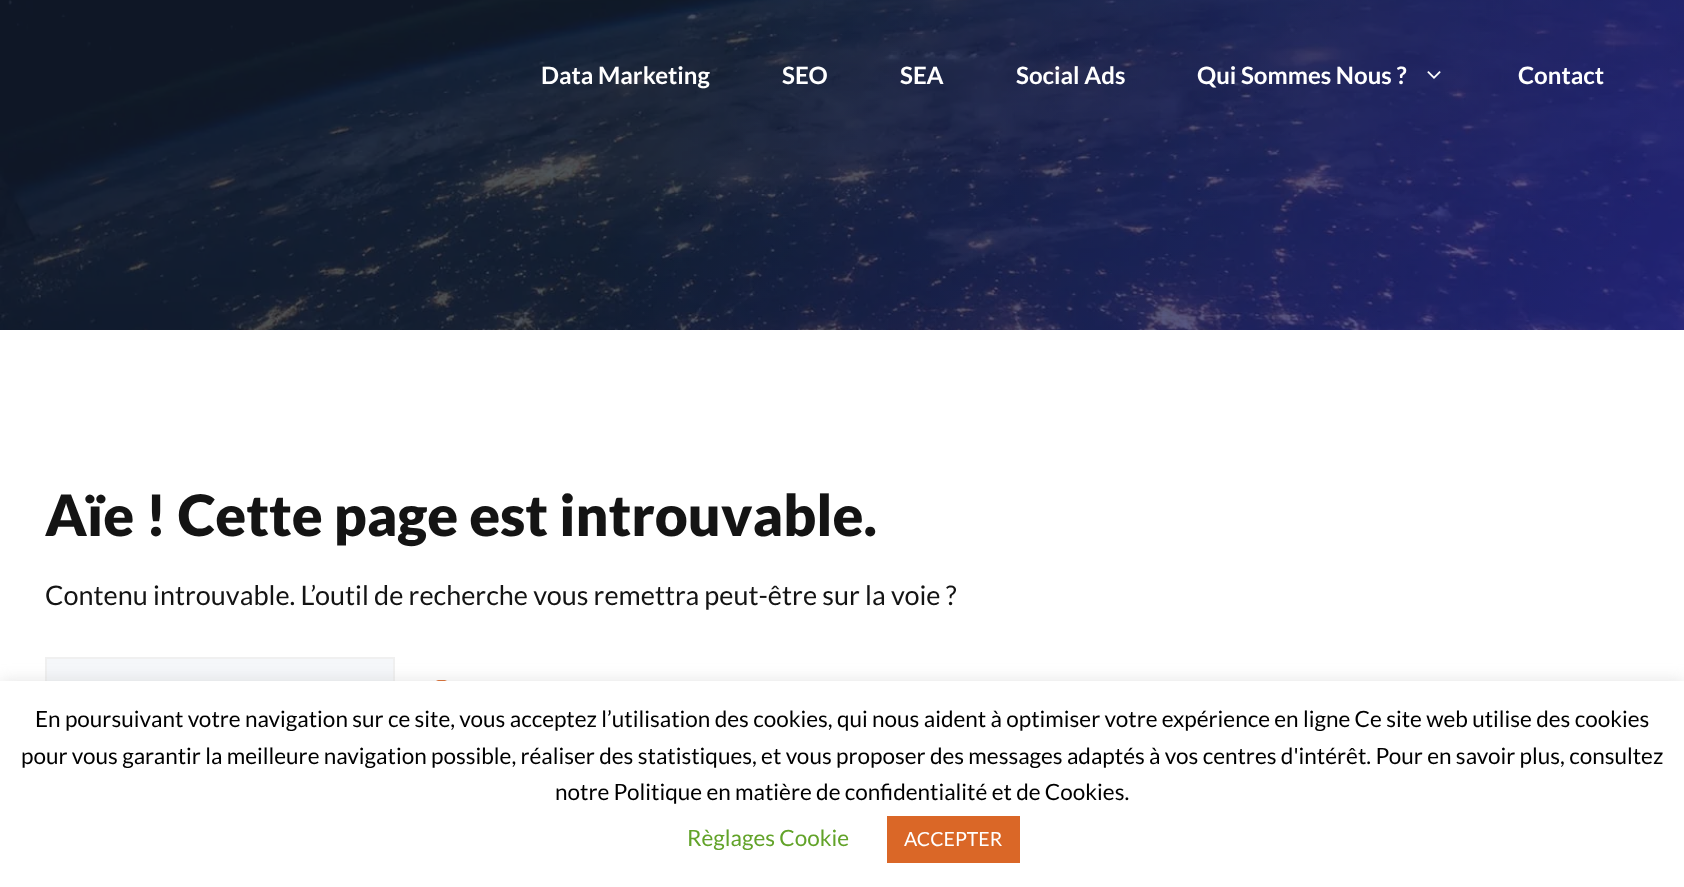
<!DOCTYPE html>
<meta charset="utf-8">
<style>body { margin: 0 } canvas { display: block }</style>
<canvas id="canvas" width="1684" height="887"></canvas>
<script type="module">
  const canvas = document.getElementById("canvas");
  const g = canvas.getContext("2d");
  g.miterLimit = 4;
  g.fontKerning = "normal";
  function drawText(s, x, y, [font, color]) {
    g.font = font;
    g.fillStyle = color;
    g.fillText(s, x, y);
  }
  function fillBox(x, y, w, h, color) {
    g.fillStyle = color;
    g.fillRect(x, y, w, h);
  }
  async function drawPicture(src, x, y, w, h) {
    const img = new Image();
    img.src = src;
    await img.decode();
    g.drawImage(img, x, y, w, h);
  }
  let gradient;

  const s1 = ["bold 24px Lato", "#FFFFFF"];
  const s2 = ["900 57px Lato", "#141414"];
  const s3 = ["27px Lato", "#141414"];
  const s4 = ["22.5px Lato", "#000000"];
  const s5 = ["22.5px Lato", "#62A329"];
  const s6 = ["19.5px Lato", "#FFFFFF"];

  fillBox(0, 0, 1684, 887, "#FFFFFF");
  gradient = g.createLinearGradient(139, -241, 1545, 571);
  gradient.addColorStop(0.4, "#141F33");
  gradient.addColorStop(1, "#2B2A92");
  g.fillStyle = gradient;
  g.fillRect(0, 0, 1684, 330);
  await drawPicture("pic1.png", 0, 0, 1684, 330);
  drawText("Data Marketing", 541, 84, s1);
  drawText("SEO", 782, 84, s1);
  drawText("SEA", 900, 84, s1);
  drawText("Social Ads", 1016, 84, s1);
  drawText("Qui Sommes Nous ?", 1197, 84, s1);
  await drawPicture("pic2.png", 1427, 71, 14, 8);
  drawText("Contact", 1518, 84, s1);
  drawText("Aïe ! Cette page est introuvable.", 45, 536, s2);
  drawText("Contenu introuvable. L’outil de recherche vous remettra peut-être sur la voie ?", 45, 605, s3);
  fillBox(47, 659, 346, 22, "#F5F7FA");
  g.strokeStyle = "#F0F0F0";
  g.lineWidth = 2;
  g.strokeRect(46, 658, 348, 72);
  await drawPicture("pic3.png", 436, 680, 11, 1);
  g.fillStyle = "rgba(172, 171, 171, 0.3)";
  g.filter = "blur(7.5px)";
  g.beginPath();
  g.rect(0, 680, 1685, 207);
  g.fill();
  g.filter = "none";
  fillBox(0, 681, 1684, 206, "#FFFFFF");
  drawText("En poursuivant votre navigation sur ce site, vous acceptez l’utilisation des cookies, qui nous aident à optimiser votre expérience en ligne Ce site web utilise des cookies", 35, 727, s4);
  drawText("pour vous garantir la meilleure navigation possible, réaliser des statistiques, et vous proposer des messages adaptés à vos centres d'intérêt. Pour en savoir plus, consultez", 21, 764, s4);
  drawText("notre Politique en matière de confidentialité et de Cookies.", 555, 800, s4);
  drawText("Règlages Cookie", 687, 846, s5);
  fillBox(887, 816, 133, 47, "#DA6727");
  drawText("ACCEPTER", 904, 846, s6);
</script>
